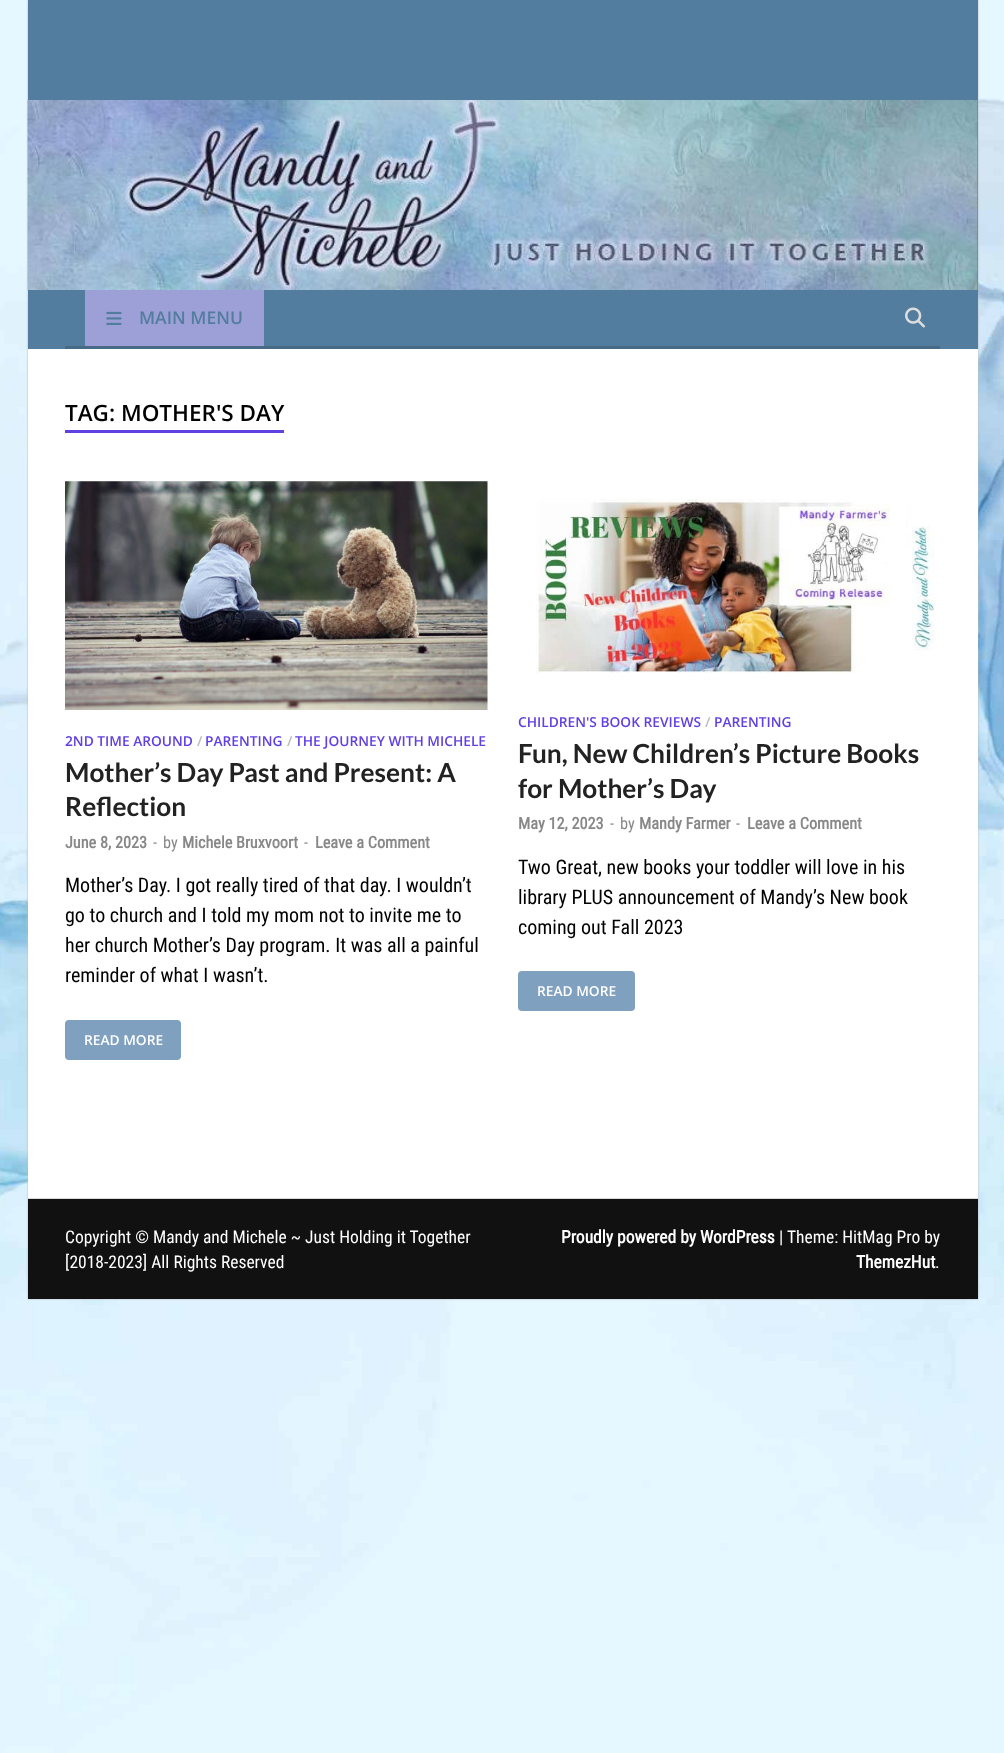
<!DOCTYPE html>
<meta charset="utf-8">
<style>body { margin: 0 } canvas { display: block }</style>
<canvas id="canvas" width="1004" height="1753"></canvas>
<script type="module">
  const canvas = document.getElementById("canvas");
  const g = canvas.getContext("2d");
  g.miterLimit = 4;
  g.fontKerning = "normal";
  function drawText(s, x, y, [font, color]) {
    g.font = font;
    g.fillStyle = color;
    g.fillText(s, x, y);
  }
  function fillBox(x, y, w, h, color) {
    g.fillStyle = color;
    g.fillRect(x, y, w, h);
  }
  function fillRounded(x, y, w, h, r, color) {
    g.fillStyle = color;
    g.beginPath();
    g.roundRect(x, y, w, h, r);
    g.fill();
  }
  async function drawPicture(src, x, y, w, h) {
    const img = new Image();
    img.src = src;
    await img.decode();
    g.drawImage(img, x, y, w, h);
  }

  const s1 = ["600 17.5px Open Sans", "#537D9F"];
  const s2 = ["600 22.5px Open Sans", "#000000"];
  const s3 = ["600 13.75px Open Sans", "#603FE3"];
  const s4 = ["600 13.75px Open Sans", "#BBBBBB"];
  const s5 = ["bold 26.25px Lato", "#222222"];
  const s6 = ["bold 16.25px Roboto Condensed", "#888888"];
  const s7 = ["16.25px Roboto Condensed", "#888888"];
  const s8 = ["20px Roboto Condensed", "#000000"];
  const s9 = ["600 13.75px Open Sans", "#FFFFFF"];
  const s10 = ["17.5px Roboto Condensed", "#FFFFFF"];
  const s11 = ["bold 17.5px Roboto Condensed", "#FFFFFF"];

  fillBox(0, 0, 1004, 1753, "#FFFFFF");
  await drawPicture("pic1.png", 0, 0, 1004, 1753);
  g.fillStyle = "#BBBBBB";
  g.filter = "blur(1px)";
  g.beginPath();
  g.rect(28, 0, 950, 1299);
  g.fill();
  g.filter = "none";
  fillBox(28, 349, 950, 849, "#FFFFFF");
  fillBox(28, 0, 950, 349, "#537D9F");
  await drawPicture("pic2.png", 27, 100, 951, 190);
  fillBox(65, 346, 875, 3, "#476A87");
  fillBox(85, 290, 179, 56, "#9DA0D6");
  await drawPicture("pic3.png", 106, 311, 16, 14);
  drawText("MAIN MENU", 139, 324, s1);
  await drawPicture("pic4.png", 905, 307, 20, 21);
  drawText("TAG: MOTHER'S DAY", 65, 421, s2);
  fillBox(65, 430, 219, 3, "#603FE3");
  await drawPicture("pic5.png", 65, 481, 423, 229);
  drawText("2ND TIME AROUND", 65, 746, s3);
  drawText("/", 197, 746, s4);
  drawText("PARENTING", 205, 746, s3);
  drawText("/", 287, 746, s4);
  drawText("THE JOURNEY WITH MICHELE", 295, 746, s3);
  drawText("Mother’s Day Past and Present: A", 65, 782, s5);
  drawText("Reflection", 65, 816, s5);
  drawText("June 8, 2023", 65, 848, s6);
  drawText("-", 153, 848, s7);
  drawText("by", 163, 848, s7);
  drawText("Michele Bruxvoort", 182, 848, s6);
  drawText("-", 304, 848, s7);
  drawText("Leave a Comment", 315, 848, s6);
  drawText("Mother’s Day. I got really tired of that day. I wouldn’t", 65, 892, s8);
  drawText("go to church and I told my mom not to invite me to", 65, 922, s8);
  drawText("her church Mother’s Day program. It was all a painful", 65, 952, s8);
  drawText("reminder of what I wasn’t.", 65, 982, s8);
  fillRounded(65, 1020, 116, 40, 4, "#80A0BF");
  drawText("READ MORE", 84, 1045, s9);
  await drawPicture("pic6.png", 536, 498, 399, 175);
  drawText("CHILDREN'S BOOK REVIEWS", 518, 727, s3);
  drawText("/", 705, 727, s4);
  drawText("PARENTING", 714, 727, s3);
  drawText("Fun, New Children’s Picture Books", 518, 763, s5);
  drawText("for Mother’s Day", 518, 798, s5);
  drawText("May 12, 2023", 518, 829, s6);
  drawText("-", 610, 829, s7);
  drawText("by", 620, 829, s7);
  drawText("Mandy Farmer", 639, 829, s6);
  drawText("-", 736, 829, s7);
  drawText("Leave a Comment", 747, 829, s6);
  drawText("Two Great, new books your toddler will love in his", 518, 874, s8);
  drawText("library PLUS announcement of Mandy’s New book", 518, 904, s8);
  drawText("coming out Fall 2023", 518, 934, s8);
  fillRounded(518, 971, 117, 40, 4, "#80A0BF");
  drawText("READ MORE", 537, 996, s9);
  fillBox(28, 1198, 950, 1, "#D9D9D9");
  fillBox(28, 1199, 950, 100, "#111111");
  drawText("Copyright © Mandy and Michele ~ Just Holding it Together", 65, 1243, s10);
  drawText("[2018-2023] All Rights Reserved", 65, 1268, s10);
  drawText("Proudly powered by WordPress", 561, 1243, s11);
  drawText("|", 779, 1243, s10);
  drawText("Theme: HitMag Pro by", 787, 1243, s10);
  drawText("ThemezHut", 856, 1268, s11);
  drawText(".", 935, 1268, s10);
</script>
